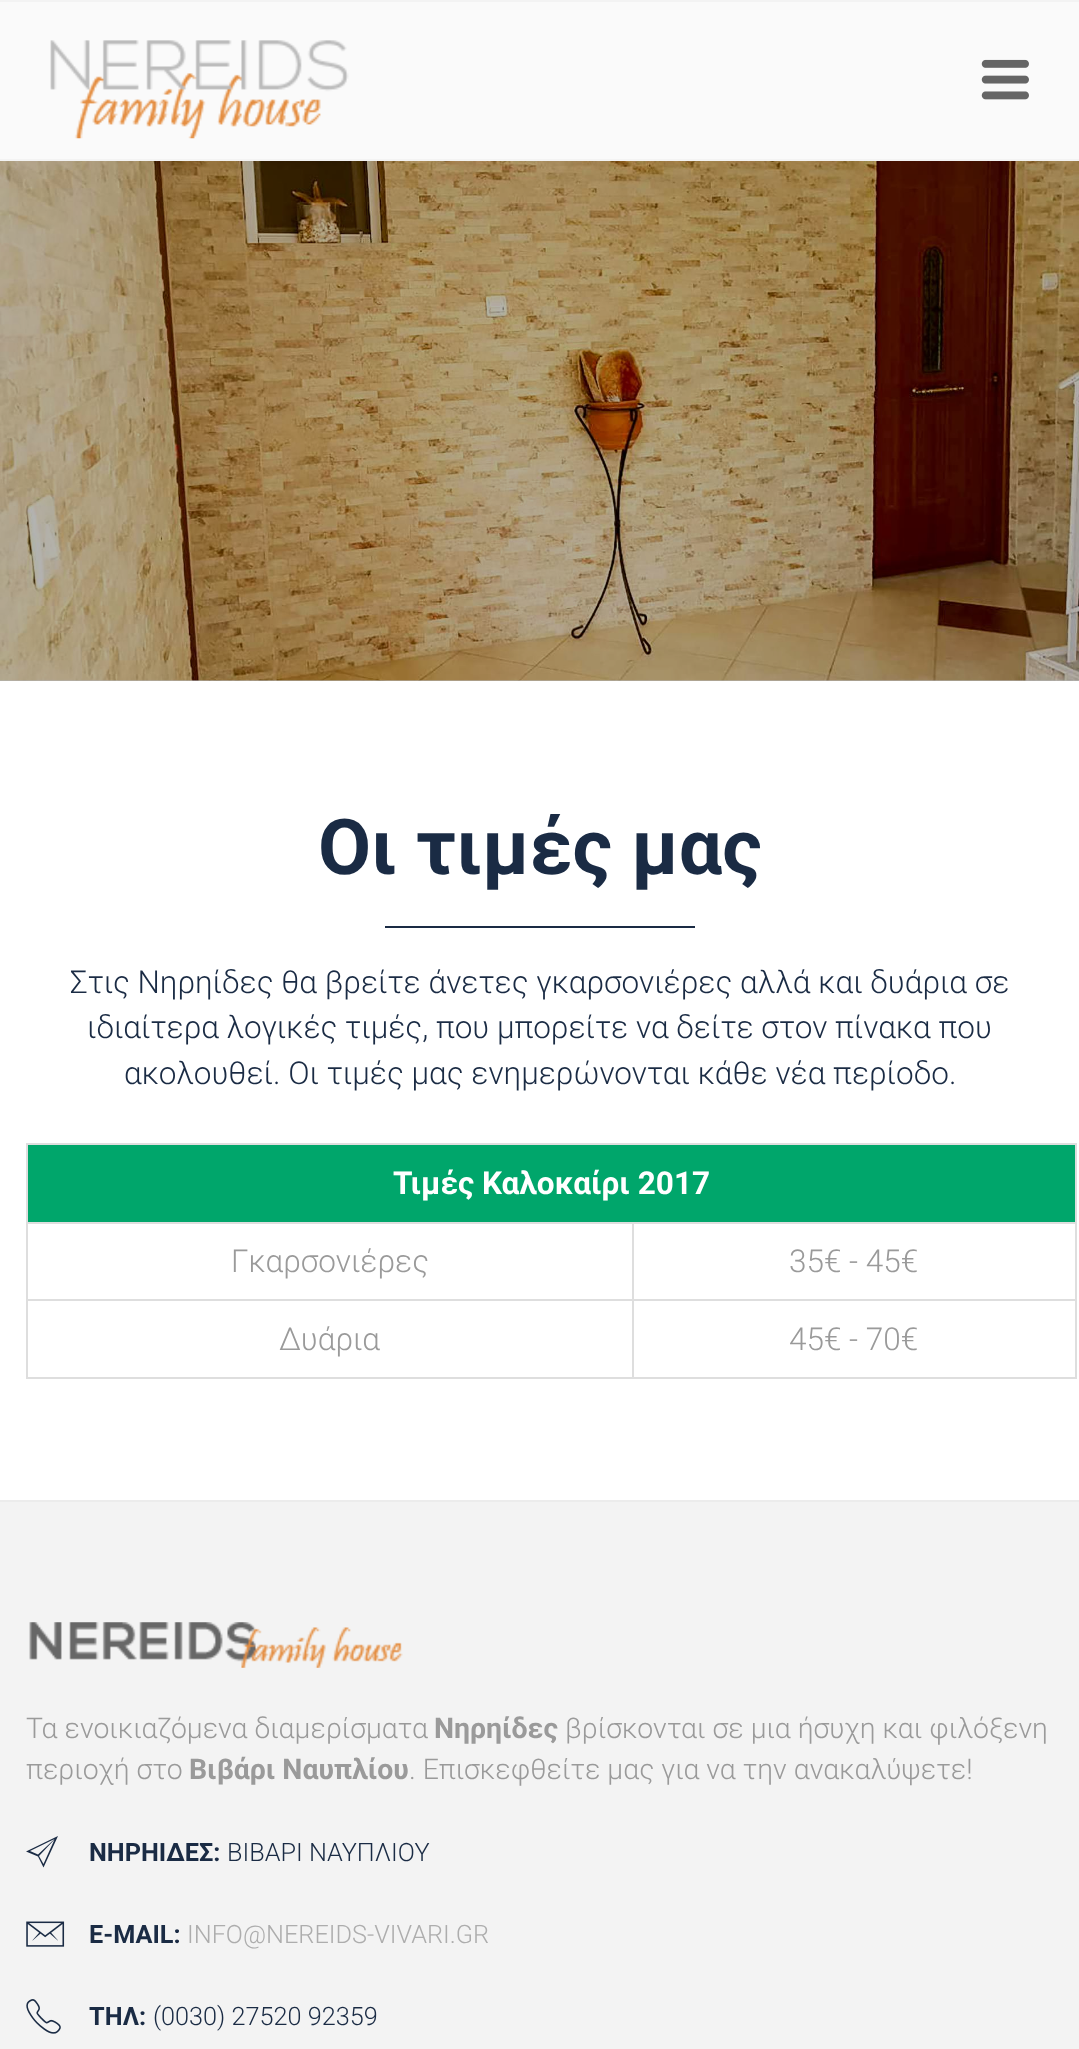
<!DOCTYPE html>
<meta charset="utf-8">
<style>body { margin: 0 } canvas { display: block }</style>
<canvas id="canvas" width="1079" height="2049"></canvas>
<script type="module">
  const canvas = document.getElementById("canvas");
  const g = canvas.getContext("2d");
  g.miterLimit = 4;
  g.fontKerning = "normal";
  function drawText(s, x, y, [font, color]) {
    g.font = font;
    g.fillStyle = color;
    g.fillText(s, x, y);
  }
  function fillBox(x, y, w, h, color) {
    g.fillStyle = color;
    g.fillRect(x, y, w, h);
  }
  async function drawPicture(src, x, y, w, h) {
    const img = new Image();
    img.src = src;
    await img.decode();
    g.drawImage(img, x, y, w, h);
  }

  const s1 = ["bold 77px Roboto", "#1A2B44"];
  const s2 = ["300 31.5px Roboto", "#1A2B44"];
  const s3 = ["bold 31.5px Roboto", "#FFFFFF"];
  const s4 = ["300 31.5px Roboto", "#9A9A9A"];
  const s5 = ["300 28.4px Roboto", "#9A9A9A"];
  const s6 = ["bold 28.4px Roboto", "#9A9A9A"];
  const s7 = ["bold 25.25px Roboto", "#1A2B44"];
  const s8 = ["300 25.25px Roboto", "#1A2B44"];
  const s9 = ["300 25.25px Roboto", "#ADADAD"];

  fillBox(0, 0, 1079, 2049, "#FFFFFF");
  fillBox(0, 680, 1079, 1, "#B3B3B3");
  fillBox(0, 2, 1079, 157, "#FAFAFA");
  fillBox(0, 0, 1079, 2, "#F3F3F3");
  fillBox(0, 159, 1079, 2, "#F3F3F3");
  await drawPicture("pic1.png", 50, 40, 299, 99);
  await drawPicture("pic2.png", 981, 59, 48, 41);
  await drawPicture("pic3.png", 0, 161, 1079, 520);
  drawText("Οι τιμές μας", 318, 874, s1);
  fillBox(385, 926, 310, 2, "#1A2B44");
  drawText("Στις Νηρηίδες θα βρείτε άνετες γκαρσονιέρες αλλά και δυάρια σε", 70, 993, s2);
  drawText("ιδιαίτερα λογικές τιμές, που μπορείτε να δείτε στον πίνακα που", 87, 1038, s2);
  drawText("ακολουθεί. Οι τιμές μας ενημερώνονται κάθε νέα περίοδο.", 124, 1084, s2);
  fillBox(1075, 1143, 2, 236, "#DEDEDE");
  fillBox(26, 1143, 1050, 2, "#DEDEDE");
  fillBox(28, 1145, 1047, 77, "#00A66B");
  drawText("Τιμές Καλοκαίρι 2017", 393, 1194, s3);
  fillBox(26, 1222, 1050, 2, "#DEDEDE");
  drawText("Γκαρσονιέρες", 231, 1272, s4);
  drawText("35€ - 45€", 789, 1272, s4);
  fillBox(26, 1299, 1050, 2, "#DEDEDE");
  fillBox(26, 1377, 1050, 2, "#DEDEDE");
  fillBox(26, 1143, 2, 236, "#DEDEDE");
  drawText("Δυάρια", 279, 1350, s4);
  fillBox(632, 1222, 2, 157, "#DEDEDE");
  drawText("45€ - 70€", 789, 1350, s4);
  fillBox(0, 1502, 1079, 547, "#F3F3F3");
  fillBox(0, 1500, 1079, 2, "#ECECEC");
  await drawPicture("pic4.png", 29, 1622, 374, 46);
  drawText("Τα ενοικιαζόμενα διαμερίσματα", 26, 1738, s5);
  drawText("Νηρηίδες", 434, 1738, s6);
  drawText("βρίσκονται σε μια ήσυχη και φιλόξενη", 565, 1738, s5);
  drawText("περιοχή στο", 26, 1779, s5);
  drawText("Βιβάρι Ναυπλίου", 189, 1779, s6);
  drawText(". Επισκεφθείτε μας για να την ανακαλύψετε!", 409, 1779, s5);
  g.fillStyle = "#1A2B44";
  g.beginPath();
  g.moveTo(26, 1851.5);
  g.lineTo(58, 1836);
  g.lineTo(43.5, 1867.5);
  g.lineTo(38, 1856.5);
  g.closePath();
  g.moveTo(39, 1856);
  g.lineTo(43.5, 1864);
  g.lineTo(54.5, 1839.5);
  g.closePath();
  g.moveTo(54.5, 1839);
  g.lineTo(30, 1851);
  g.lineTo(38, 1854.5);
  g.closePath();
  g.fill();
  drawText("ΝΗΡΗΙΔΕΣ:", 89, 1861, s7);
  drawText("ΒΙΒΑΡΙ ΝΑΥΠΛΙΟΥ", 227, 1861, s8);
  await drawPicture("pic5.png", 26, 1921, 39, 26);
  drawText("E-MAIL:", 89, 1943, s7);
  drawText("INFO@NEREIDS-VIVARI.GR", 187, 1943, s9);
  await drawPicture("pic6.png", 26, 1999, 35, 35);
  drawText("ΤΗΛ:", 89, 2025, s7);
  drawText("(0030) 27520 92359", 153, 2025, s8);
</script>
